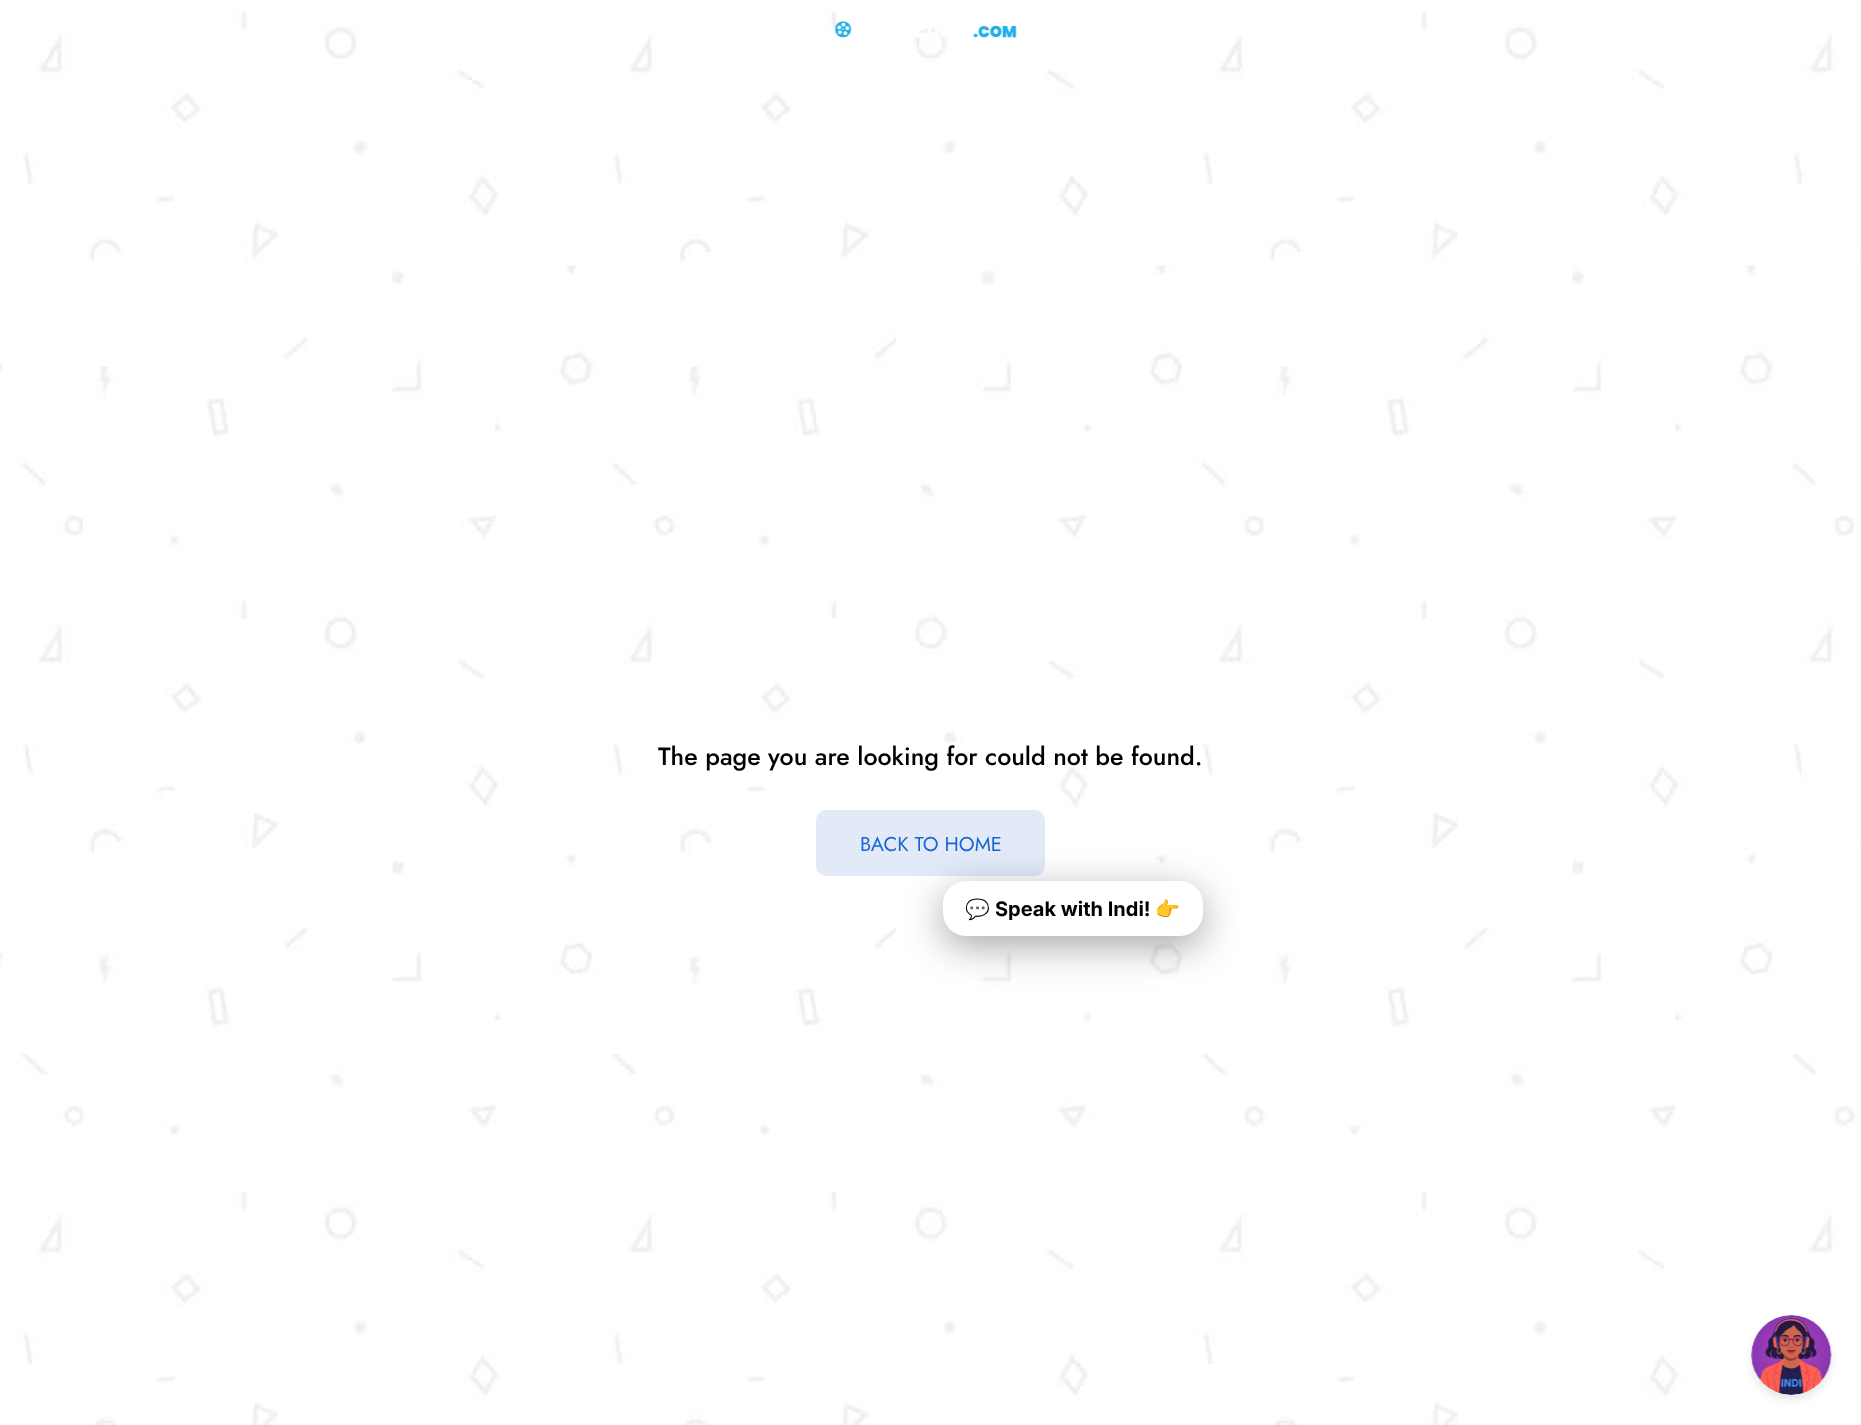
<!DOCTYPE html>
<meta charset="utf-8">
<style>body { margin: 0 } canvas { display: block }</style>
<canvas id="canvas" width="1861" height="1425"></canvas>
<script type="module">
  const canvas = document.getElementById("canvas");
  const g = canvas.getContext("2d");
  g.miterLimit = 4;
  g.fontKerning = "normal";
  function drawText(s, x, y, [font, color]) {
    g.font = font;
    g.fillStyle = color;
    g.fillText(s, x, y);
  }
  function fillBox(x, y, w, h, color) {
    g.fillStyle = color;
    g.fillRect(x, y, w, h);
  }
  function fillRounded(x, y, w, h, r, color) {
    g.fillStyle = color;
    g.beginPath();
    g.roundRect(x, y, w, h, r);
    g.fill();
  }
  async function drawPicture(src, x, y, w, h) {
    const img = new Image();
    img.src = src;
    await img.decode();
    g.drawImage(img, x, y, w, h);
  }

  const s1 = ["500 25px Jost", "#000000"];
  const s2 = ["20px Jost", "#1967D2"];
  const s3 = ["bold 20px Noto Color Emoji", "#000000"];
  const s4 = ["bold 20px Inter", "#000000"];

  fillBox(0, 0, 1861, 1425, "#FFFFFF");
  await drawPicture("pic1.png", 0, 11, 1861, 1414);
  await drawPicture("pic2.png", 834, 21, 183, 29);
  drawText("The page you are looking for could not be found.", 658, 765, s1);
  fillRounded(816, 810, 229, 66, 10, "#E2EAF8");
  drawText("BACK TO HOME", 860, 851, s2);
  g.fillStyle = "rgba(0, 0, 0, 0.35)";
  g.filter = "blur(19px)";
  g.beginPath();
  g.roundRect(943, 891, 260, 55, 23);
  g.fill();
  g.filter = "none";
  fillRounded(943, 881, 260, 55, 23, "#FFFFFF");
  drawText("💬", 965, 916, s3);
  drawText("Speak with Indi!", 995, 916, s4);
  drawText("👉", 1155, 916, s3);
  g.fillStyle = "rgba(0, 0, 0, 0.1)";
  g.filter = "blur(4px)";
  g.beginPath();
  g.roundRect(1751, 1320, 80, 80, 40);
  g.fill();
  g.filter = "none";
  await drawPicture("pic3.png", 1751, 1315, 81, 80);
</script>
